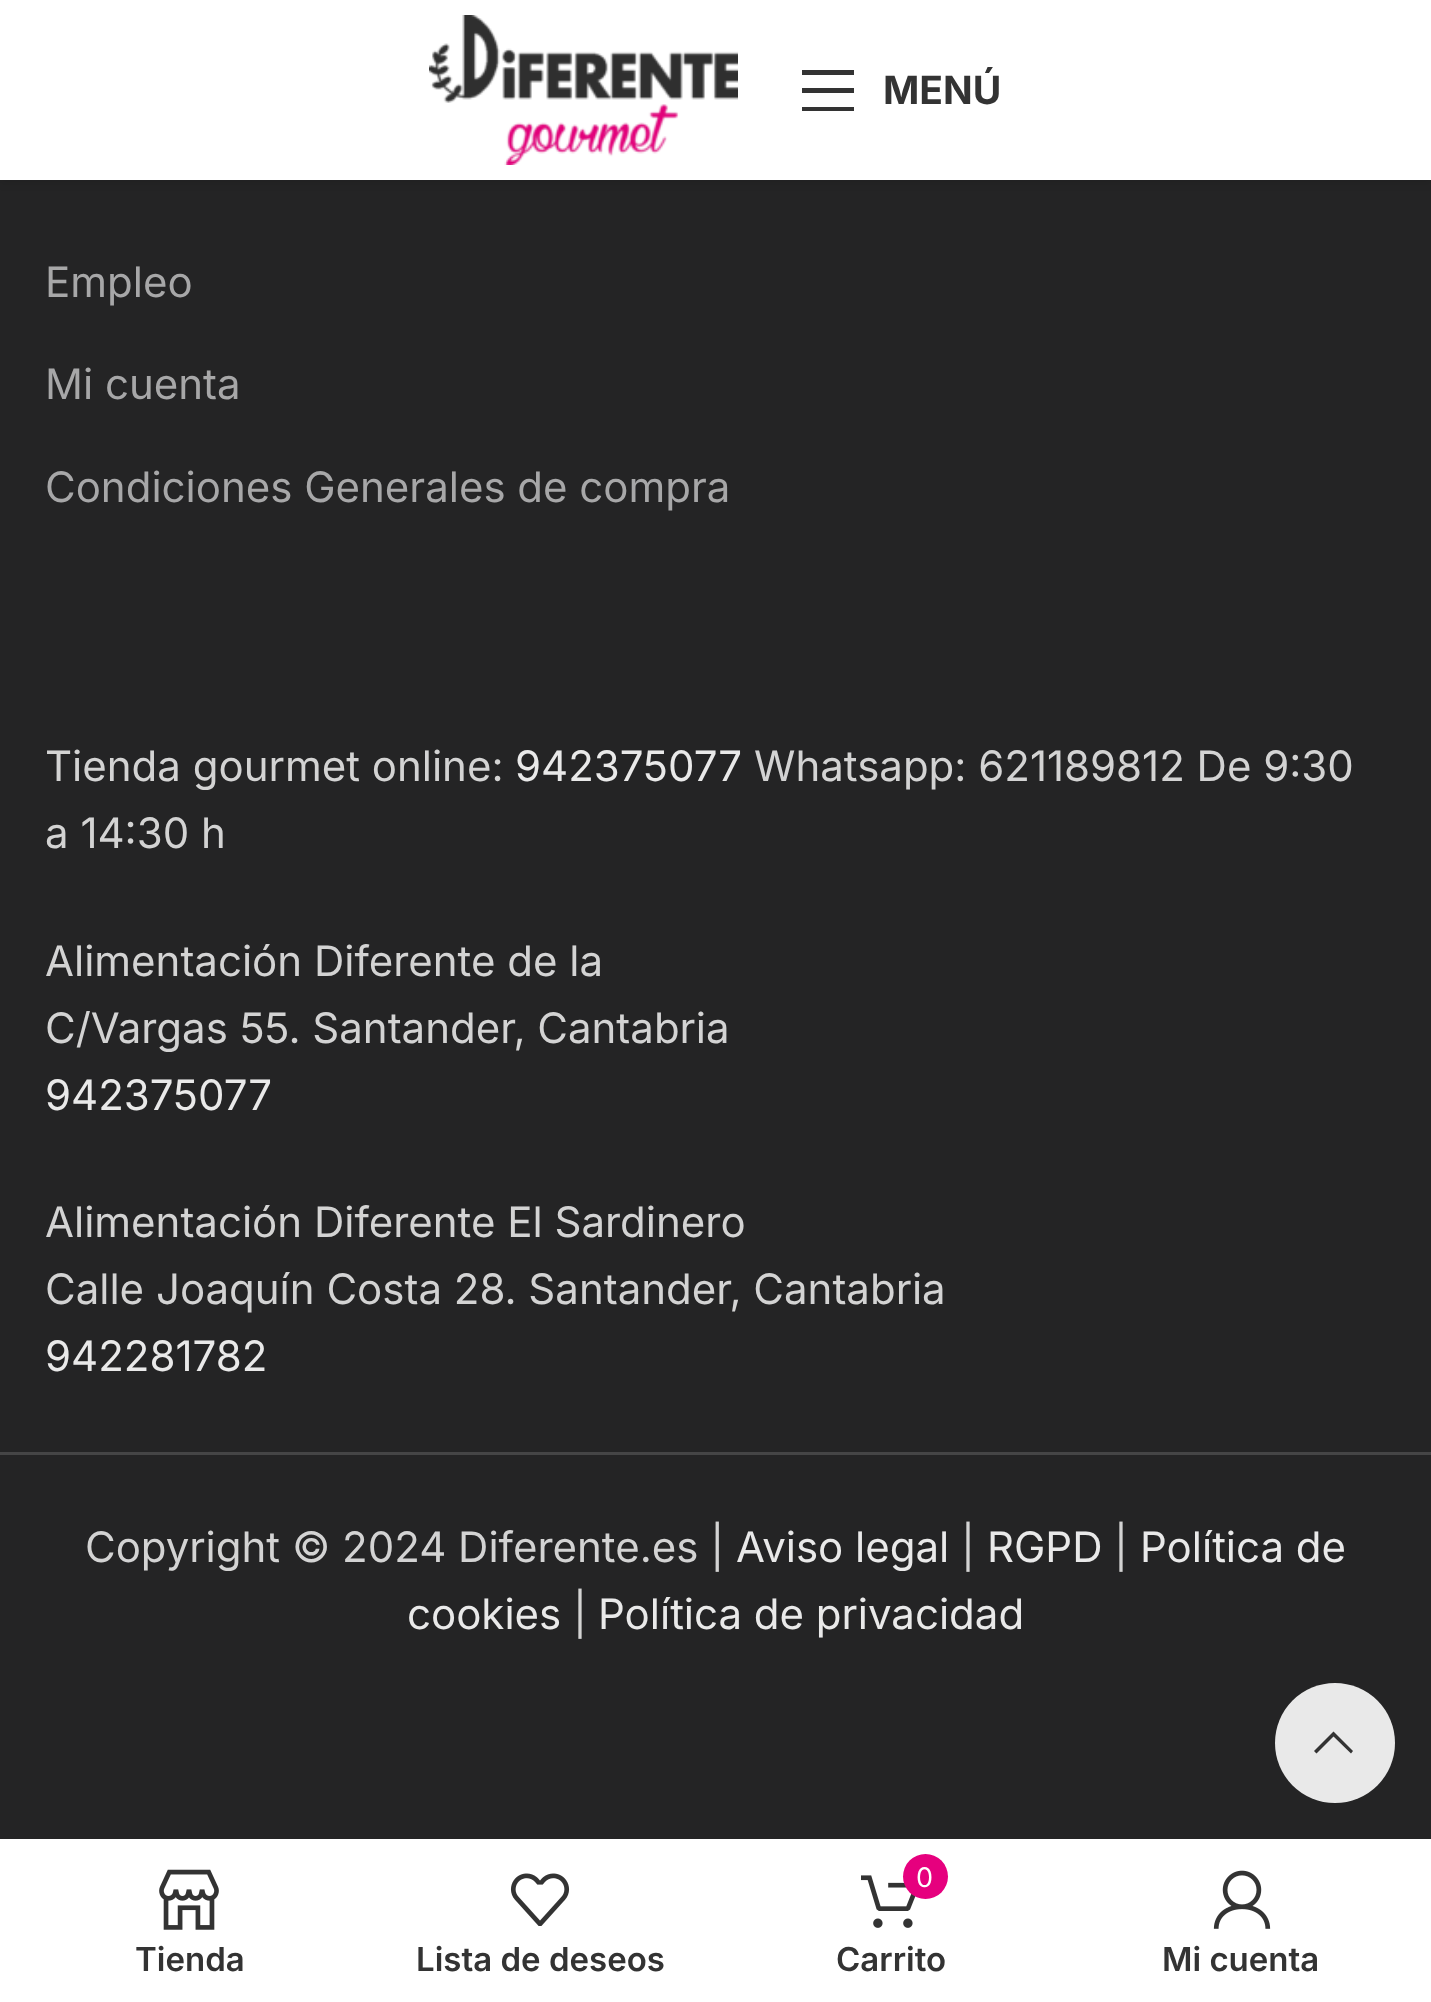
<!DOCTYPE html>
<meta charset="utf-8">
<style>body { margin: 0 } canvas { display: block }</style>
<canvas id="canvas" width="1431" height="2002"></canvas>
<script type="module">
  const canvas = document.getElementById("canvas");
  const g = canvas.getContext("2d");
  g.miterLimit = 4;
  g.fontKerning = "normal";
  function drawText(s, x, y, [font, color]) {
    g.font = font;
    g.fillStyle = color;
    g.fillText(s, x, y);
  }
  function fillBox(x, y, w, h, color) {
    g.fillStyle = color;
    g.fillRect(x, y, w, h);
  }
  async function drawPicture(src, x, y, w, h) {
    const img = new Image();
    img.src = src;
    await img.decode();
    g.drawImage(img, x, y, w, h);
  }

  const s1 = ["bold 39px Inter", "#333333"];
  const s2 = ["42px Inter", "#A7A7A8"];
  const s3 = ["42px Inter", "#D3D3D3"];
  const s4 = ["42px Inter", "#E9E9E9"];
  const s5 = ["600 33px Inter", "#333333"];
  const s6 = ["27px Inter", "#FFFFFF"];

  fillBox(0, 0, 1431, 2002, "#FFFFFF");
  fillBox(0, 180, 1431, 1659, "#242425");
  g.fillStyle = "rgba(0, 0, 0, 0.1)";
  g.filter = "blur(4.5px)";
  g.beginPath();
  g.rect(0, 3, 1431, 180);
  g.fill();
  g.filter = "none";
  fillBox(0, 0, 1431, 180, "#FFFFFF");
  await drawPicture("pic1.png", 429, 15, 309, 150);
  g.fillStyle = "#333333";
  g.beginPath();
  g.moveTo(802, 75);
  g.lineTo(854, 75);
  g.lineTo(854, 70);
  g.lineTo(802, 70);
  g.closePath();
  g.moveTo(802, 93);
  g.lineTo(854, 93);
  g.lineTo(854, 88);
  g.lineTo(802, 88);
  g.closePath();
  g.moveTo(802, 111);
  g.lineTo(854, 111);
  g.lineTo(854, 107);
  g.lineTo(802, 107);
  g.closePath();
  g.fill();
  drawText("MENÚ", 883, 104, s1);
  drawText("Empleo", 45, 297, s2);
  drawText("Mi cuenta", 45, 399, s2);
  drawText("Condiciones Generales de compra", 45, 502, s2);
  drawText("Tienda gourmet online:", 45, 781, s3);
  drawText("942375077", 515, 781, s4);
  drawText("Whatsapp: 621189812 De 9:30", 754, 781, s3);
  drawText("a 14:30 h", 45, 848, s3);
  drawText("Alimentación Diferente de la", 45, 976, s3);
  drawText("C/Vargas 55. Santander, Cantabria", 45, 1043, s3);
  drawText("942375077", 45, 1110, s4);
  drawText("Alimentación Diferente El Sardinero", 45, 1237, s3);
  drawText("Calle Joaquín Costa 28. Santander, Cantabria", 45, 1304, s3);
  drawText("942281782", 45, 1371, s4);
  fillBox(0, 1452, 1431, 3, "#454546");
  drawText("Copyright © 2024 Diferente.es |", 85, 1562, s3);
  drawText("Aviso legal", 736, 1562, s4);
  drawText("|", 961, 1562, s3);
  drawText("RGPD", 987, 1562, s4);
  drawText("|", 1114, 1562, s3);
  drawText("Política de", 1140, 1562, s4);
  drawText("cookies", 407, 1629, s4);
  drawText("|", 573, 1629, s3);
  drawText("Política de privacidad", 598, 1629, s4);
  g.beginPath();
  g.arc(1335, 1743, 60, 0, Math.PI * 2);
  g.fill();
  g.fillStyle = "#333333";
  g.beginPath();
  g.moveTo(1351, 1753.5);
  g.lineTo(1353, 1751);
  g.lineTo(1333.5, 1731.5);
  g.lineTo(1314, 1751);
  g.lineTo(1316.5, 1753.5);
  g.lineTo(1333.5, 1736.5);
  g.closePath();
  g.fill();
  await drawPicture("pic2.png", 159, 1869, 60, 61);
  drawText("Tienda", 135, 1971, s5);
  await drawPicture("pic3.png", 510, 1873, 60, 53);
  drawText("Lista de deseos", 416, 1971, s5);
  await drawPicture("pic4.png", 861, 1875, 55, 53);
  g.fillStyle = "#E6007E";
  g.beginPath();
  g.arc(925.5, 1876.5, 22.5, 0, Math.PI * 2);
  g.fill();
  drawText("0", 916, 1887, s6);
  drawText("Carrito", 836, 1971, s5);
  await drawPicture("pic5.png", 1213, 1870, 58, 59);
  drawText("Mi cuenta", 1162, 1971, s5);
</script>
